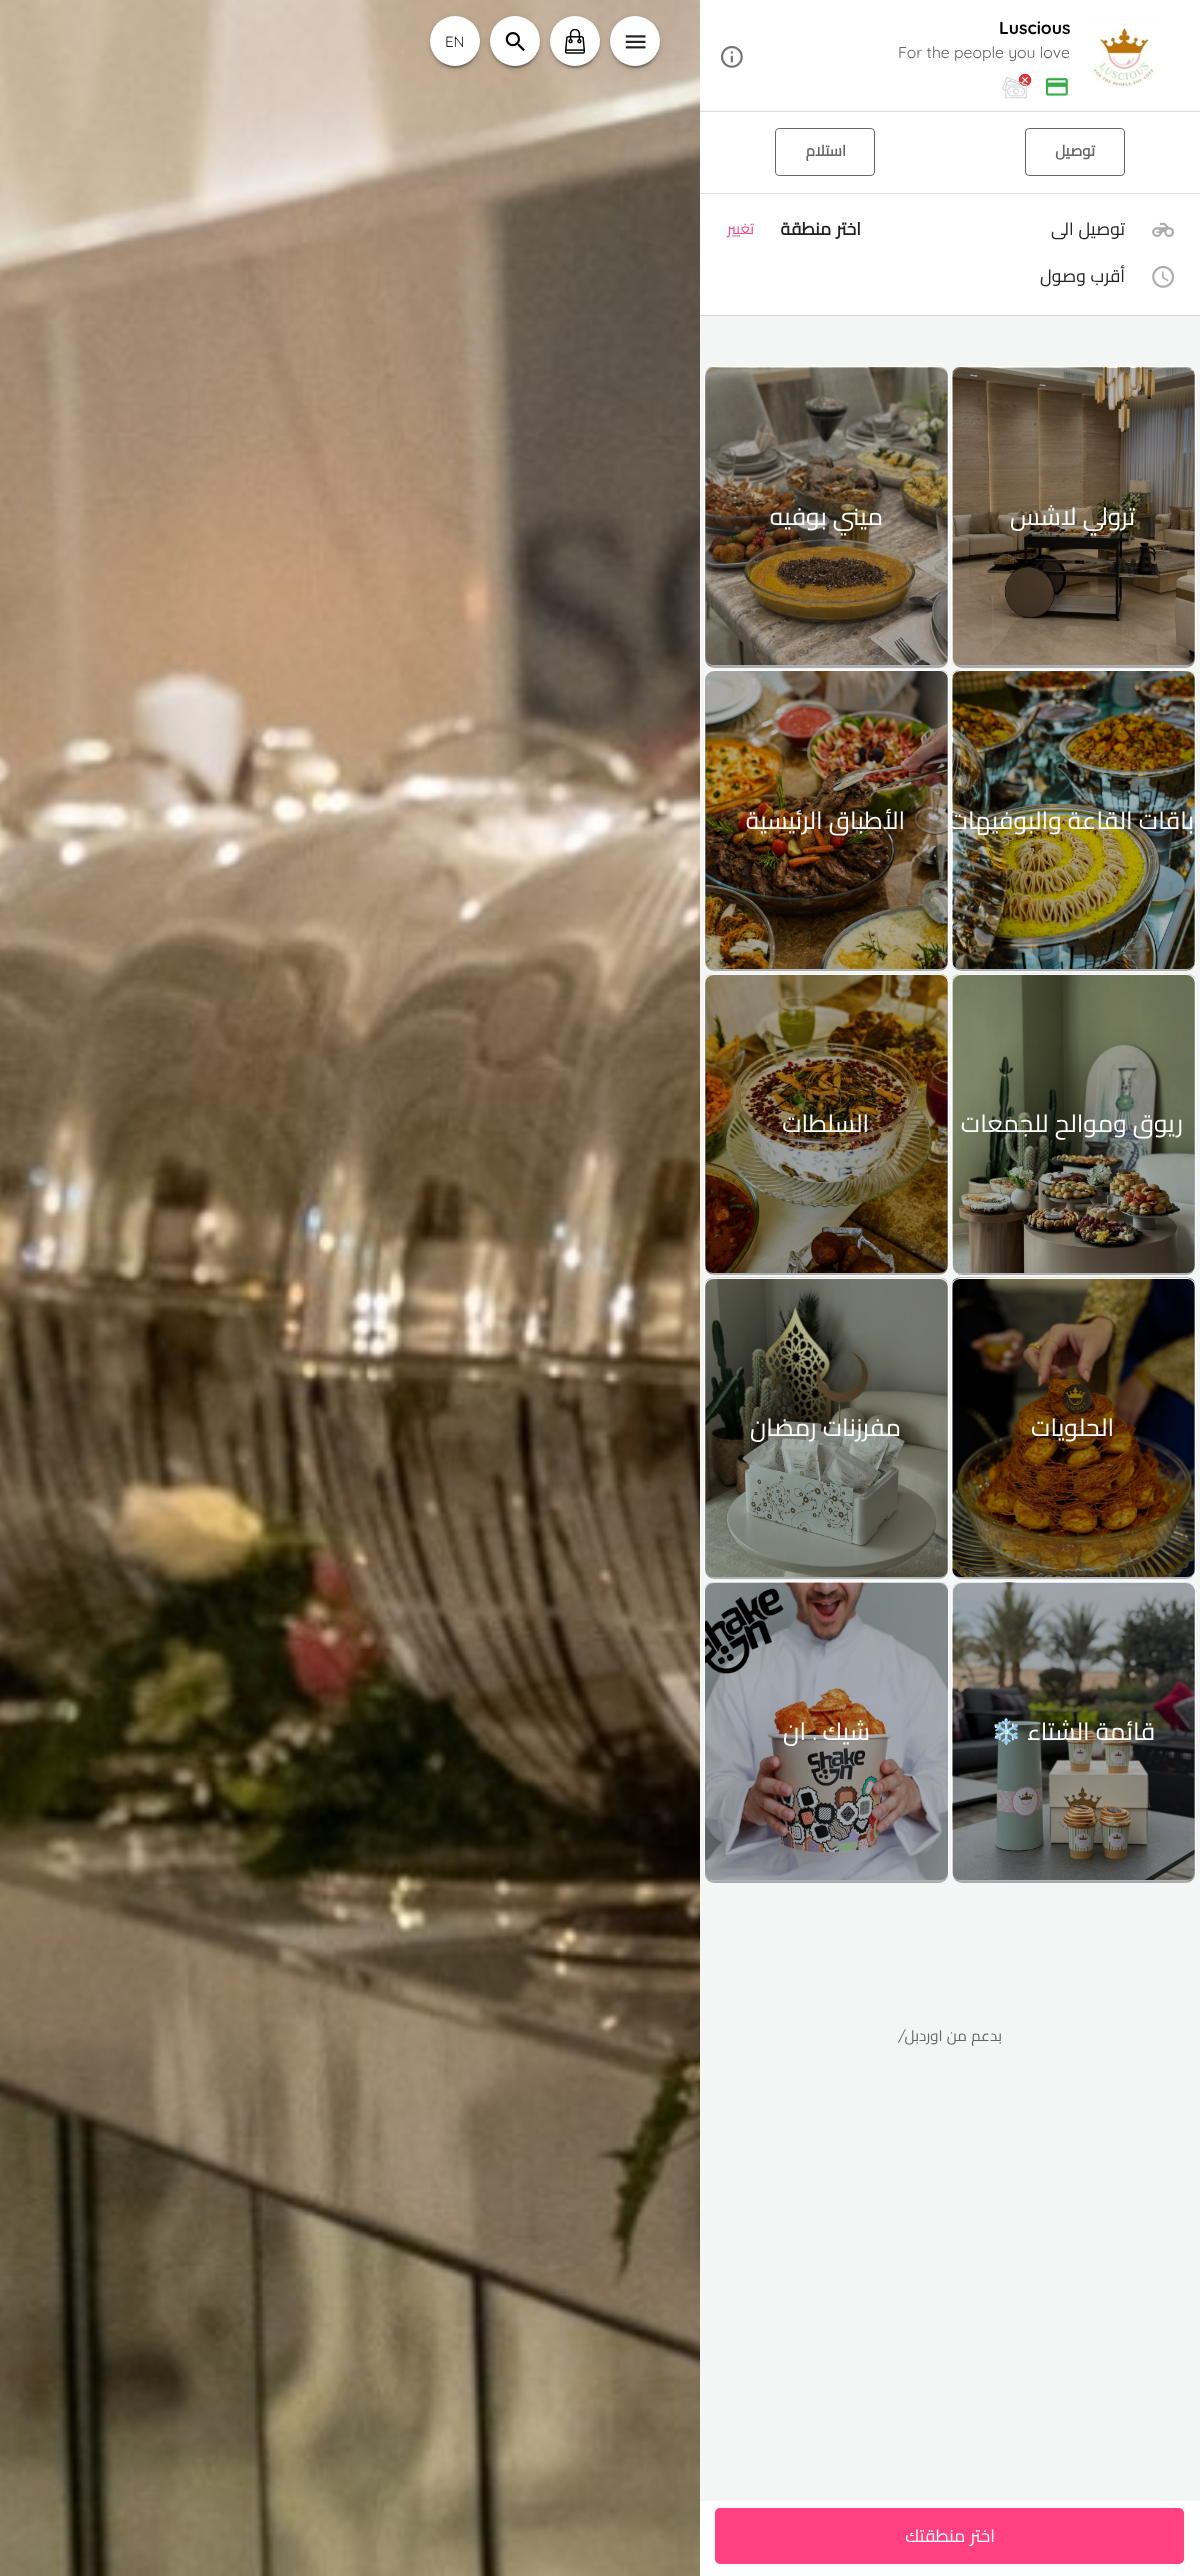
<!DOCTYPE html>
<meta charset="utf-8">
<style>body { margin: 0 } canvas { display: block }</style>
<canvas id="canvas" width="1200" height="2576"></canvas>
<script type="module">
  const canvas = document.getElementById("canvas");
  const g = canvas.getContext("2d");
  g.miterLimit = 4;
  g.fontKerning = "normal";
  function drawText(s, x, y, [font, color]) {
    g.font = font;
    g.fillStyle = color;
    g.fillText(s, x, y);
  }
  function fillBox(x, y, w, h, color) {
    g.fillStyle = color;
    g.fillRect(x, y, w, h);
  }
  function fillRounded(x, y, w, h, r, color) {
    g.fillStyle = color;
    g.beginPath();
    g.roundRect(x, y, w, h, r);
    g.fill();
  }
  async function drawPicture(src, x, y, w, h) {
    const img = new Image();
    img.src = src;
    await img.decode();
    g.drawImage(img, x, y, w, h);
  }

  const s1 = ["300 17.5px Quicksand", "#000000"];
  const s2 = ["300 15.75px 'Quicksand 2'", "#5F5F5F"];
  const s3 = ["bold 15px Cairo", "#666666"];
  const s4 = ["17.5px Cairo", "#212121"];
  const s5 = ["bold 17.5px Cairo", "#212121"];
  const s6 = ["15px Cairo", "#FF4081"];
  const s7 = ["24.5px Cairo", "#FFFFFF"];
  const s8 = ["24.5px Noto Color Emoji", "#FFFFFF"];
  const s9 = ["300 24.5px 'Quicksand 2'", "#FFFFFF"];
  const s10 = ["15px Cairo", "#666666"];
  const s11 = ["300 15px 'Quicksand 2'", "#666666"];
  const s12 = ["17.5px Cairo", "#FFFFFF"];
  const s13 = ["300 15px 'Quicksand 2'", "#212121"];

  fillBox(0, 0, 1200, 2576, "#F4F5F5");
  fillBox(700, 0, 500, 110, "#FFFFFF");
  await drawPicture("pic1.png", 1088, 19, 72, 70);
  drawText("Luscious", 999, 34, s1);
  drawText("For the people you love", 898, 58, s2);
  await drawPicture("pic2.png", 1045, 78, 23, 18);
  await drawPicture("pic3.png", 1018, 73, 14, 14);
  await drawPicture("pic4.png", 1002, 76, 25, 23);
  await drawPicture("pic5.png", 721, 46, 22, 22);
  fillBox(700, 112, 500, 203, "#FFFFFF");
  fillBox(700, 315, 500, 1, "#D4D5D4");
  fillBox(700, 111, 500, 1, "#DEE2E6");
  fillBox(700, 193, 500, 1, "#DEE2E6");
  g.beginPath();
  g.roundRect(1025.5, 128.5, 99, 47, 3.5);
  g.strokeStyle = "#666666";
  g.stroke();
  g.direction = "rtl";
  drawText("توصيل", 1095, 156, s3);
  g.beginPath();
  g.roundRect(775.5, 128.5, 99, 47, 3.5);
  g.stroke();
  drawText("استلام", 846, 156, s3);
  await drawPicture("pic6.png", 1152, 222, 22, 15);
  g.wordSpacing = "1px";
  drawText("توصيل الى", 1125, 235, s4);
  drawText("اختر منطقة", 861, 235, s5);
  g.wordSpacing = "0px";
  drawText("تغيير", 754, 234, s6);
  await drawPicture("pic7.png", 1152, 266, 22, 22);
  g.wordSpacing = "1px";
  drawText("أقرب وصول", 1125, 282, s4);
  await drawPicture("pic8.png", 952, 366, 243, 301);
  g.beginPath();
  g.roundRect(951.5, 366.5, 244, 299, 8.5);
  g.strokeStyle = "#FFFFFF";
  g.stroke();
  fillRounded(953, 368, 242, 300, 9, "rgba(0, 0, 0, 0.3)");
  g.letterSpacing = "-0.25px";
  drawText("ترولي لاشس", 1135, 525, s7);
  await drawPicture("pic9.png", 705, 366, 243, 301);
  g.beginPath();
  g.roundRect(704.5, 366.5, 244, 299, 8.5);
  g.stroke();
  fillRounded(705, 368, 243, 300, 9, "rgba(0, 0, 0, 0.3)");
  drawText("ميني بوفيه", 883, 525, s7);
  await drawPicture("pic10.png", 952, 670, 243, 300);
  g.beginPath();
  g.roundRect(951.5, 670.5, 244, 299, 8.5);
  g.stroke();
  fillRounded(953, 671, 242, 300, 9, "rgba(0, 0, 0, 0.3)");
  g.letterSpacing = "-0.2px";
  drawText("باقات القاعة والبوفيهات", 1194, 829, s7);
  await drawPicture("pic11.png", 705, 670, 243, 300);
  g.beginPath();
  g.roundRect(704.5, 670.5, 244, 299, 8.5);
  g.stroke();
  fillRounded(705, 671, 243, 300, 9, "rgba(0, 0, 0, 0.3)");
  drawText("الأطباق الرئيسية", 905, 829, s7);
  await drawPicture("pic12.png", 952, 973, 243, 301);
  g.beginPath();
  g.roundRect(951.5, 974.5, 244, 299, 8.5);
  g.stroke();
  fillRounded(953, 975, 242, 300, 9, "rgba(0, 0, 0, 0.3)");
  g.letterSpacing = "-0.25px";
  drawText("ريوق وموالح للجمعات", 1183, 1132, s7);
  await drawPicture("pic13.png", 705, 973, 243, 301);
  g.beginPath();
  g.roundRect(704.5, 974.5, 244, 299, 8.5);
  g.stroke();
  fillRounded(705, 975, 243, 300, 9, "rgba(0, 0, 0, 0.3)");
  g.wordSpacing = "0px";
  drawText("السلطات", 869, 1132, s7);
  await drawPicture("pic14.png", 952, 1277, 243, 301);
  g.beginPath();
  g.roundRect(951.5, 1278.5, 244, 299, 8.5);
  g.stroke();
  fillRounded(953, 1279, 242, 300, 9, "rgba(0, 0, 0, 0.3)");
  g.letterSpacing = "-0.2px";
  drawText("الحلويات", 1114, 1436, s7);
  await drawPicture("pic15.png", 705, 1277, 243, 301);
  g.beginPath();
  g.roundRect(704.5, 1278.5, 244, 299, 8.5);
  g.stroke();
  fillRounded(705, 1279, 243, 300, 9, "rgba(0, 0, 0, 0.3)");
  g.letterSpacing = "-0.25px";
  g.wordSpacing = "1px";
  drawText("مفرزنات رمضان", 901, 1436, s7);
  await drawPicture("pic16.png", 952, 1581, 243, 301);
  g.beginPath();
  g.roundRect(951.5, 1581.5, 244, 299, 8.5);
  g.stroke();
  fillRounded(953, 1583, 242, 300, 9, "rgba(0, 0, 0, 0.3)");
  g.letterSpacing = "-0.2px";
  drawText("قائمة الشتاء", 1155, 1740, s7);
  g.letterSpacing = "0px";
  g.wordSpacing = "0px";
  drawText("❄️", 1022, 1740, s8);
  await drawPicture("pic17.png", 704, 1582, 245, 298);
  g.beginPath();
  g.roundRect(704.5, 1581.5, 244, 299, 8.5);
  g.stroke();
  fillRounded(705, 1583, 243, 300, 9, "rgba(0, 0, 0, 0.3)");
  drawText("شيك", 870, 1740, s7);
  drawText(".", 817, 1740, s9);
  g.letterSpacing = "-0.25px";
  drawText("ان", 806, 1740, s7);
  g.letterSpacing = "0px";
  g.wordSpacing = "1px";
  drawText("بدعم من اوردبل", 1002, 2041, s10);
  g.wordSpacing = "0px";
  g.direction = "ltr";
  drawText("/", 898, 2041, s11);
  fillBox(700, 2501, 500, 75, "#FFFFFF");
  fillRounded(715, 2508, 469, 56, 5, "#FF4081");
  g.wordSpacing = "1px";
  g.direction = "rtl";
  drawText("اختر منطقتك", 995, 2542, s12);
  await drawPicture("pic18.png", 0, 0, 700, 2576);
  g.fillStyle = "rgba(0, 0, 0, 0.12)";
  g.filter = "blur(3px)";
  g.beginPath();
  g.roundRect(610, 18, 50, 50, 25);
  g.fill();
  g.filter = "none";
  g.fillStyle = "rgba(0, 0, 0, 0.14)";
  g.filter = "blur(1px)";
  g.beginPath();
  g.roundRect(610, 19, 50, 50, 25);
  g.fill();
  g.filter = "none";
  g.fillStyle = "rgba(0, 0, 0, 0.2)";
  g.filter = "blur(0.5px)";
  g.beginPath();
  g.roundRect(613, 23, 45, 45, 22.5);
  g.fill();
  g.filter = "none";
  g.fillStyle = "#FFFFFF";
  g.beginPath();
  g.arc(635, 41, 25, 0, Math.PI * 2);
  g.fill();
  await drawPicture("pic19.png", 625, 35, 21, 14);
  g.fillStyle = "rgba(0, 0, 0, 0.12)";
  g.filter = "blur(3px)";
  g.beginPath();
  g.roundRect(550, 18, 50, 50, 25);
  g.fill();
  g.filter = "none";
  g.fillStyle = "rgba(0, 0, 0, 0.14)";
  g.filter = "blur(1px)";
  g.beginPath();
  g.roundRect(550, 19, 50, 50, 25);
  g.fill();
  g.filter = "none";
  g.fillStyle = "rgba(0, 0, 0, 0.2)";
  g.filter = "blur(0.5px)";
  g.beginPath();
  g.roundRect(553, 23, 45, 45, 22.5);
  g.fill();
  g.filter = "none";
  g.fillStyle = "#FFFFFF";
  g.beginPath();
  g.arc(575, 41, 25, 0, Math.PI * 2);
  g.fill();
  await drawPicture("pic20.png", 564, 29, 22, 25);
  g.fillStyle = "rgba(0, 0, 0, 0.12)";
  g.filter = "blur(3px)";
  g.beginPath();
  g.roundRect(490, 18, 50, 50, 25);
  g.fill();
  g.filter = "none";
  g.fillStyle = "rgba(0, 0, 0, 0.14)";
  g.filter = "blur(1px)";
  g.beginPath();
  g.roundRect(490, 19, 50, 50, 25);
  g.fill();
  g.filter = "none";
  g.fillStyle = "rgba(0, 0, 0, 0.2)";
  g.filter = "blur(0.5px)";
  g.beginPath();
  g.roundRect(493, 23, 45, 45, 22.5);
  g.fill();
  g.filter = "none";
  g.fillStyle = "#FFFFFF";
  g.beginPath();
  g.arc(515, 41, 25, 0, Math.PI * 2);
  g.fill();
  await drawPicture("pic21.png", 505, 32, 20, 20);
  g.fillStyle = "rgba(0, 0, 0, 0.12)";
  g.filter = "blur(3px)";
  g.beginPath();
  g.roundRect(430, 18, 50, 50, 25);
  g.fill();
  g.filter = "none";
  g.fillStyle = "rgba(0, 0, 0, 0.14)";
  g.filter = "blur(1px)";
  g.beginPath();
  g.roundRect(430, 19, 50, 50, 25);
  g.fill();
  g.filter = "none";
  g.fillStyle = "rgba(0, 0, 0, 0.2)";
  g.filter = "blur(0.5px)";
  g.beginPath();
  g.roundRect(433, 23, 45, 45, 22.5);
  g.fill();
  g.filter = "none";
  g.fillStyle = "#FFFFFF";
  g.beginPath();
  g.arc(455, 41, 25, 0, Math.PI * 2);
  g.fill();
  g.wordSpacing = "0px";
  g.direction = "ltr";
  drawText("EN", 445, 47, s13);
</script>
